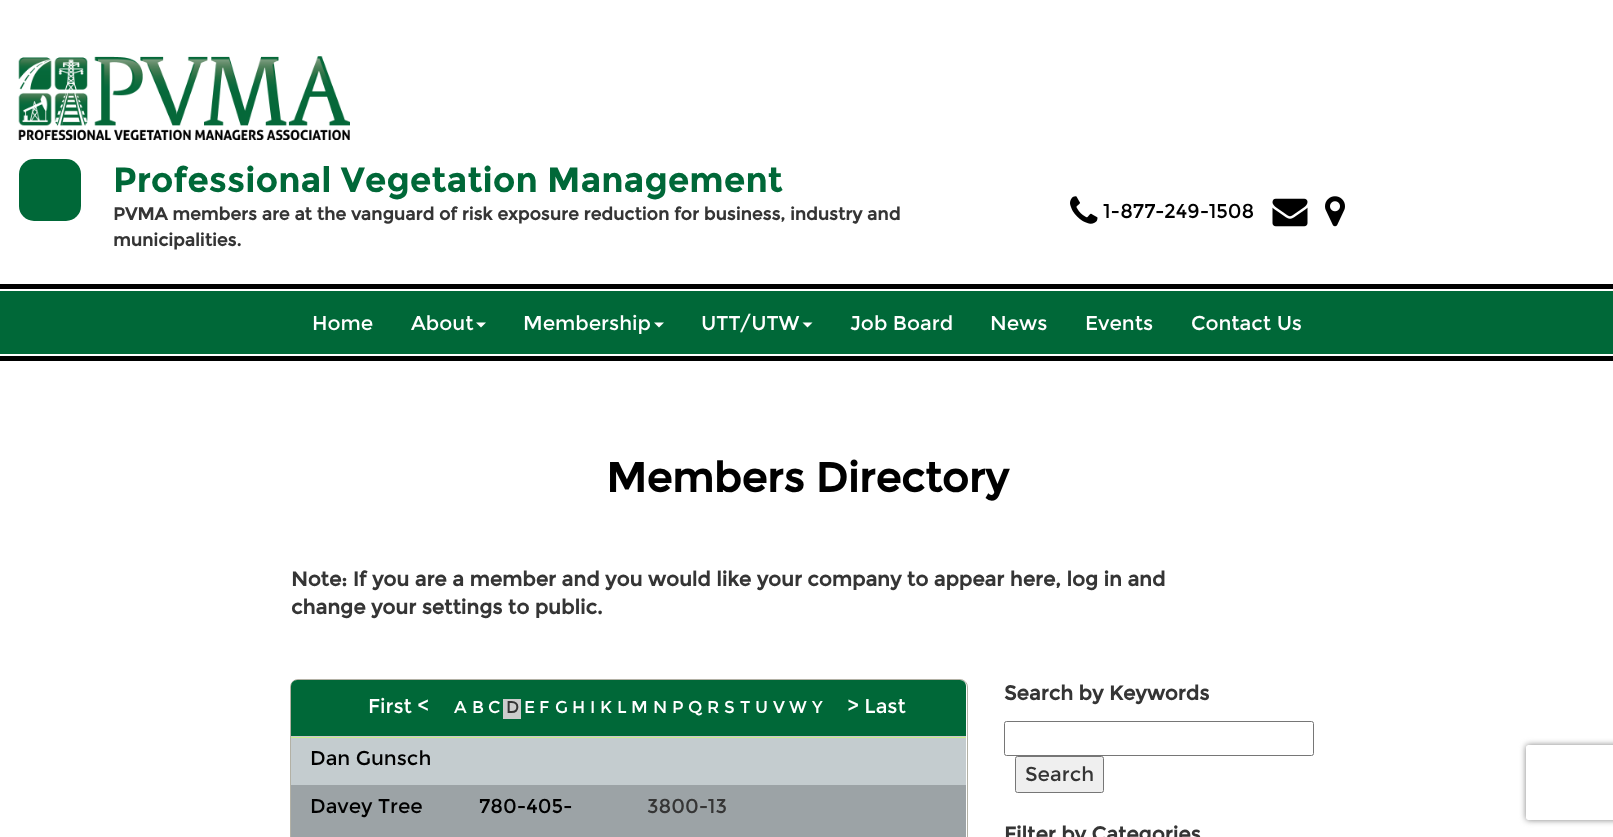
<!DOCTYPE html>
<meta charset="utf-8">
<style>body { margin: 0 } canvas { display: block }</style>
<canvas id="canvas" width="1613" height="837"></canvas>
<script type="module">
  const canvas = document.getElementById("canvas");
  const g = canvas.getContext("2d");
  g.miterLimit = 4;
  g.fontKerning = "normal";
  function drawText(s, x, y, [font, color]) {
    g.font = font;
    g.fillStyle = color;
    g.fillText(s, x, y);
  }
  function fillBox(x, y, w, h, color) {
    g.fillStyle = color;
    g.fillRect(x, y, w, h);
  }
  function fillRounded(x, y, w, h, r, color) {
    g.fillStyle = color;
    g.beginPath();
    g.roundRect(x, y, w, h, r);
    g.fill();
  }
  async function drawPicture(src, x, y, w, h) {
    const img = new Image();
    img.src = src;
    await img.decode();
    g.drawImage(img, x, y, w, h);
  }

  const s1 = ["bold 35px 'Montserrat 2'", "#006838"];
  const s2 = ["bold 17.5px Montserrat", "#353535"];
  const s3 = ["20px Montserrat", "#000000"];
  const s4 = ["20px Montserrat", "#FFFFFF"];
  const s5 = ["bold 41.25px Montserrat", "#000000"];
  const s6 = ["bold 20px Montserrat", "#353535"];
  const s7 = ["17px Montserrat", "#FFFFFF"];
  const s8 = ["17px Montserrat", "#353535"];
  const s9 = ["20px Montserrat", "#353535"];

  fillBox(0, 0, 1613, 837, "#FFFFFF");
  await drawPicture("pic1.png", 18, 56, 332, 84);
  fillRounded(19, 159, 62, 62, 15, "#006838");
  drawText("Professional Vegetation Management", 113, 192, s1);
  drawText("PVMA members are at the vanguard of risk exposure reduction for business, industry and", 113, 220, s2);
  drawText("municipalities.", 113, 246, s2);
  await drawPicture("pic2.png", 1070, 196, 28, 28);
  drawText("1-877-249-1508", 1103, 218, s3);
  await drawPicture("pic3.png", 1272, 198, 36, 29);
  await drawPicture("pic4.png", 1325, 196, 20, 31);
  fillBox(0, 291, 1613, 63, "#006838");
  fillBox(0, 284, 1613, 5, "#000000");
  drawText("Home", 312, 330, s4);
  drawText("About", 411, 330, s4);
  g.beginPath();
  g.moveTo(476, 322.5);
  g.lineTo(486, 322.5);
  g.lineTo(481, 327.5);
  g.closePath();
  g.fill();
  drawText("Membership", 523, 330, s4);
  g.beginPath();
  g.moveTo(654, 322.5);
  g.lineTo(664, 322.5);
  g.lineTo(659, 327.5);
  g.closePath();
  g.fill();
  drawText("UTT/UTW", 701, 330, s4);
  g.beginPath();
  g.moveTo(802.5, 322.5);
  g.lineTo(812.5, 322.5);
  g.lineTo(807.5, 327.5);
  g.closePath();
  g.fill();
  drawText("Job Board", 850, 330, s4);
  drawText("News", 990, 330, s4);
  drawText("Events", 1085, 330, s4);
  drawText("Contact Us", 1191, 330, s4);
  fillBox(0, 356, 1613, 5, "#000000");
  drawText("Members Directory", 606, 492, s5);
  drawText("Note: If you are a member and you would like your company to appear here, log in and", 291, 586, s6);
  drawText("change your settings to public.", 291, 614, s6);
  g.beginPath();
  g.roundRect(290.5, 679.5, 677, 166, 7.5);
  g.strokeStyle = "#B3B1A5";
  g.stroke();
  fillRounded(291, 680, 675, 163, 6, "#006838");
  drawText("First <", 368, 713, s4);
  drawText("A", 454, 713, s7);
  drawText("B", 472, 713, s7);
  drawText("C", 488, 713, s7);
  fillBox(503, 699, 18, 20, "#CCCCCC");
  drawText("D", 506, 713, s8);
  drawText("E", 524, 713, s7);
  drawText("F", 539, 713, s7);
  drawText("G", 555, 713, s7);
  drawText("H", 572, 713, s7);
  drawText("I", 590, 713, s7);
  drawText("K", 600, 713, s7);
  drawText("L", 617, 713, s7);
  drawText("M", 631, 713, s7);
  drawText("N", 653, 713, s7);
  drawText("P", 672, 713, s7);
  drawText("Q", 688, 713, s7);
  drawText("R", 707, 713, s7);
  drawText("S", 724, 713, s7);
  drawText("T", 740, 713, s7);
  drawText("U", 755, 713, s7);
  drawText("V", 773, 713, s7);
  drawText("W", 789, 713, s7);
  drawText("Y", 812, 713, s7);
  drawText("> Last", 847, 713, s4);
  fillBox(291, 737, 675, 1, "#CAEC8B");
  fillBox(291, 736, 675, 1, "#CCCCCC");
  fillBox(291, 738, 675, 47, "#C4CCCF");
  drawText("Dan Gunsch", 310, 765, s3);
  fillBox(291, 785, 675, 52, "#9CA3A6");
  drawText("Davey Tree", 310, 813, s3);
  drawText("780-405-", 479, 813, s3);
  drawText("3800-13", 647, 813, s9);
  drawText("Search by Keywords", 1004, 700, s6);
  g.beginPath();
  g.roundRect(1004.5, 721.5, 309, 34, 2);
  g.strokeStyle = "#767676";
  g.stroke();
  g.fillStyle = "#EFEFEF";
  g.beginPath();
  g.roundRect(1015.5, 756.5, 88, 36, 2);
  g.fill();
  g.stroke();
  drawText("Search", 1025, 781, s9);
  drawText("Filter by Categories", 1004, 841, s6);
  g.save();
  g.beginPath();
  g.moveTo(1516, 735);
  g.lineTo(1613, 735);
  g.lineTo(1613, 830);
  g.lineTo(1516, 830);
  g.closePath();
  g.moveTo(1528.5, 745);
  g.lineTo(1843.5, 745);
  g.bezierCurveTo(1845, 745, 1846, 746, 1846, 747.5);
  g.lineTo(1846, 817.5);
  g.bezierCurveTo(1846, 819, 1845, 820, 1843.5, 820);
  g.lineTo(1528.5, 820);
  g.bezierCurveTo(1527, 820, 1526, 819, 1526, 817.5);
  g.lineTo(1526, 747.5);
  g.bezierCurveTo(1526, 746, 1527, 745, 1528.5, 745);
  g.closePath();
  g.clip("evenodd");
  g.fillStyle = "#808080";
  g.filter = "blur(3px)";
  g.beginPath();
  g.roundRect(1526, 745, 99, 75, 2.5);
  g.fill();
  g.filter = "none";
  g.restore();
</script>
